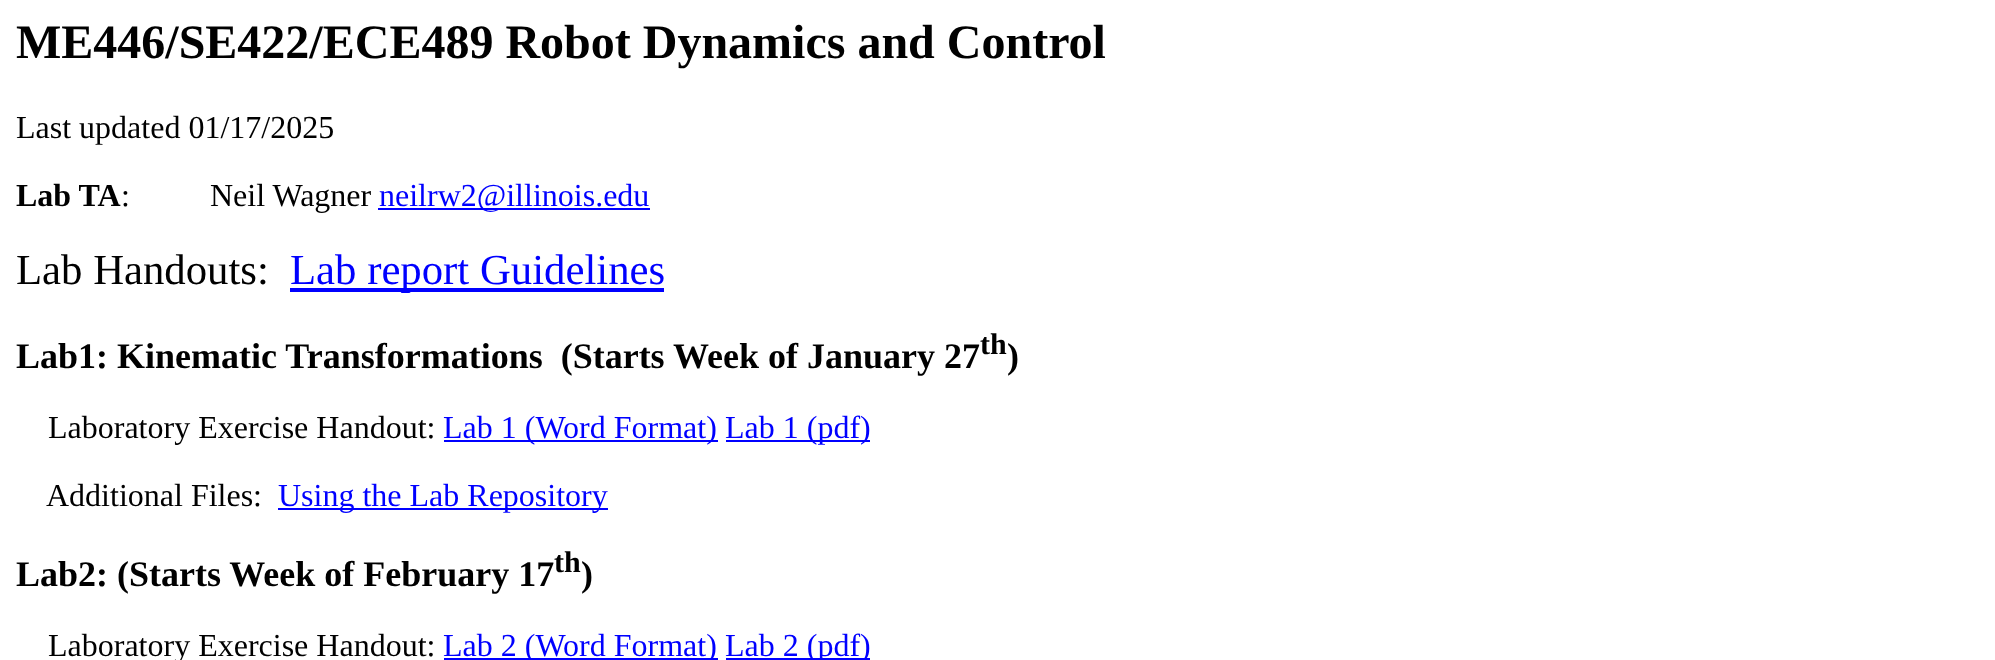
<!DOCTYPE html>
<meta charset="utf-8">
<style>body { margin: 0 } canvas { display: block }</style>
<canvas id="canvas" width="1995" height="660"></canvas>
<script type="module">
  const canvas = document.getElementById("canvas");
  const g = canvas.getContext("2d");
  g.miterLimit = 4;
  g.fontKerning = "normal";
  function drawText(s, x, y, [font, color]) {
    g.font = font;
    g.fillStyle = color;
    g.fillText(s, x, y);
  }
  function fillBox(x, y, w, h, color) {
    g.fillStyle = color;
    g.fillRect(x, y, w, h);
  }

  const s1 = ["bold 48px Liberation Serif", "#000000"];
  const s2 = ["32px Liberation Serif", "#000000"];
  const s3 = ["bold 32px Liberation Serif", "#000000"];
  const s4 = ["32px Liberation Serif", "#0000FF"];
  const s5 = ["42.75px Liberation Serif", "#000000"];
  const s6 = ["42.75px Liberation Serif", "#0000FF"];
  const s7 = ["bold 36px Liberation Serif", "#000000"];
  const s8 = ["bold 30px Liberation Serif", "#000000"];

  fillBox(0, 0, 1995, 660, "#FFFFFF");
  drawText("ME446/SE422/ECE489 Robot Dynamics and Control", 16, 58, s1);
  drawText("Last updated 01/17/2025", 16, 138, s2);
  drawText("Lab TA", 16, 206, s3);
  drawText(":", 121, 206, s2);
  drawText("Neil Wagner", 210, 206, s2);
  fillBox(378, 208, 272, 2, "#0000FF");
  drawText("neilrw2@illinois.edu", 379, 206, s4);
  drawText("Lab Handouts:", 16, 284, s5);
  fillBox(290, 288, 374, 4, "#0000FF");
  drawText("Lab report Guidelines", 290, 284, s6);
  drawText("Lab1: Kinematic Transformations  (Starts Week of January 27", 16, 368, s7);
  drawText("th", 980, 354, s8);
  drawText(")", 1007, 368, s7);
  drawText("Laboratory Exercise Handout:", 48, 438, s2);
  fillBox(444, 440, 274, 2, "#0000FF");
  drawText("Lab 1 (Word Format)", 443, 438, s4);
  fillBox(726, 440, 144, 2, "#0000FF");
  drawText("Lab 1 (pdf)", 725, 438, s4);
  drawText("Additional Files:", 46, 506, s2);
  fillBox(278, 508, 330, 2, "#0000FF");
  drawText("Using the Lab Repository", 278, 506, s4);
  drawText("Lab2: (Starts Week of February 17", 16, 586, s7);
  drawText("th", 554, 572, s8);
  drawText(")", 581, 586, s7);
  drawText("Laboratory Exercise Handout:", 48, 656, s2);
  fillBox(444, 658, 274, 2, "#0000FF");
  drawText("Lab 2 (Word Format)", 443, 656, s4);
  fillBox(726, 658, 144, 2, "#0000FF");
  drawText("Lab 2 (pdf)", 725, 656, s4);
</script>
